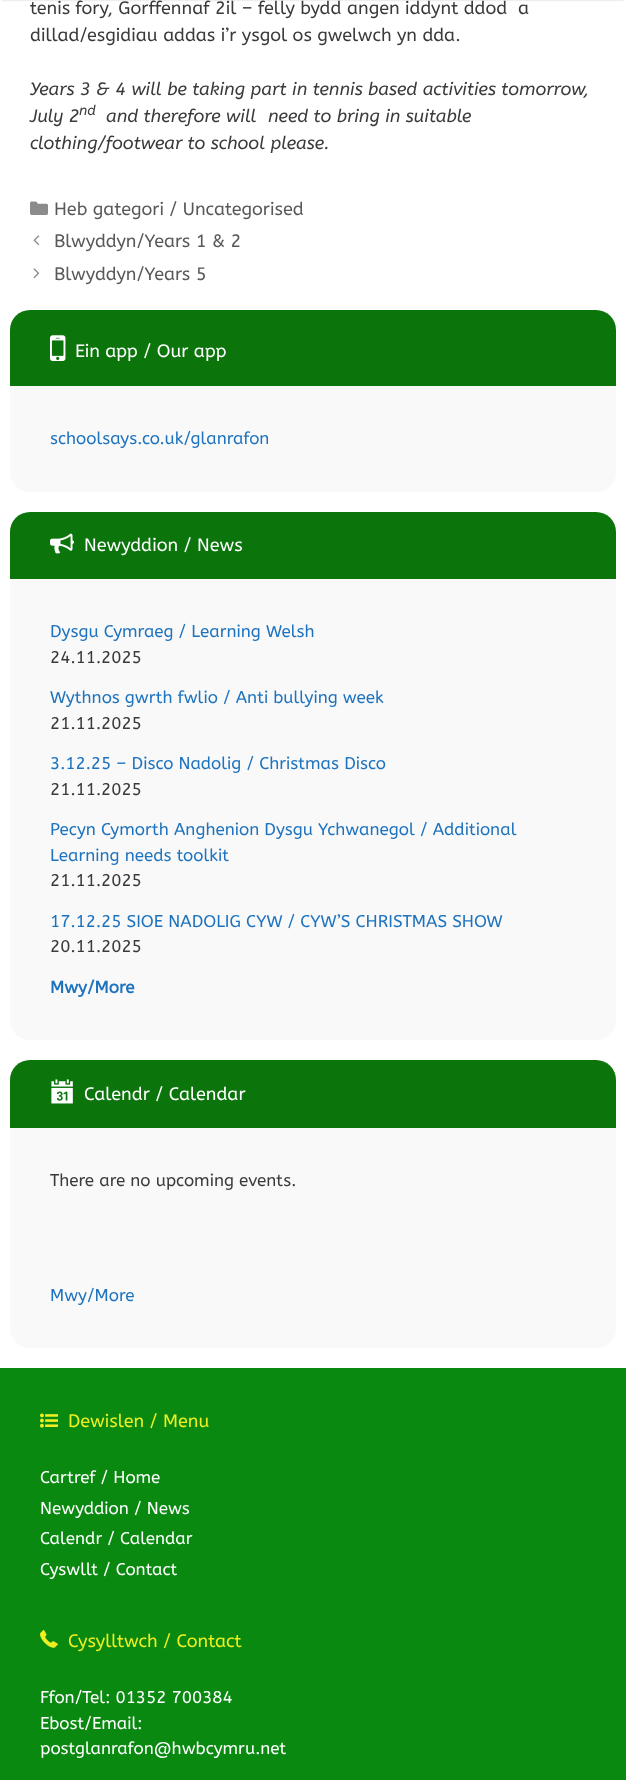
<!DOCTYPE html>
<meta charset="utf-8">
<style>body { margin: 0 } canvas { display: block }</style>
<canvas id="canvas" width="626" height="1780"></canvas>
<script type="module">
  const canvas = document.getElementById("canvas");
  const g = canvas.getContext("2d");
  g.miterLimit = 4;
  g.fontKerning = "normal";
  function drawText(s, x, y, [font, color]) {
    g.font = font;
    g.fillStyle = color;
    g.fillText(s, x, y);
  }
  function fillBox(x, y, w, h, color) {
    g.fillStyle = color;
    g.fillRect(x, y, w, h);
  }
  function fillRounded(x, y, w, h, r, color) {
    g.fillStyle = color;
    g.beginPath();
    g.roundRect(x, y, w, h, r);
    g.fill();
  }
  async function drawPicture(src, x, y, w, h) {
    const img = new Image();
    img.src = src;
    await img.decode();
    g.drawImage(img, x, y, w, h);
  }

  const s1 = ["18px ABeeZee", "#3A3A3A"];
  const s2 = ["italic 18px ABeeZee", "#3A3A3A"];
  const s3 = ["italic 14px ABeeZee", "#3A3A3A"];
  const s4 = ["18px ABeeZee", "#595959"];
  const s5 = ["18px ABeeZee", "#FFFFFF"];
  const s6 = ["17px ABeeZee", "#1E73BE"];
  const s7 = ["17px ABeeZee", "#3A3A3A"];
  const s8 = ["bold 17px ABeeZee", "#1E73BE"];
  const s9 = ["18px ABeeZee", "#EEEE22"];
  const s10 = ["17px ABeeZee", "#FFFFFF"];

  fillBox(0, 0, 626, 1780, "#FFFFFF");
  g.fillStyle = "rgba(0, 0, 0, 0.2)";
  g.filter = "blur(1px)";
  g.beginPath();
  g.rect(2, -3, 622, 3);
  g.fill();
  g.filter = "none";
  drawText("tenis fory, Gorffennaf 2il – felly bydd angen iddynt ddod", 30, 14, s1);
  drawText("a", 518, 14, s1);
  drawText("dillad/esgidiau addas i’r ysgol os gwelwch yn dda.", 30, 41, s1);
  drawText("Years 3 & 4 will be taking part in tennis based activities tomorrow,", 30, 95, s2);
  drawText("July 2", 30, 122, s2);
  drawText("nd", 79, 115, s3);
  drawText("and therefore will", 106, 122, s2);
  drawText("need to bring in suitable", 268, 122, s2);
  drawText("clothing/footwear to school please.", 30, 149, s2);
  await drawPicture("pic1.png", 30, 201, 18, 14);
  drawText("Heb gategori / Uncategorised", 54, 215, s4);
  await drawPicture("pic2.png", 33, 235, 7, 11);
  drawText("Blwyddyn/Years 1 & 2", 54, 247, s4);
  await drawPicture("pic3.png", 33, 268, 7, 11);
  drawText("Blwyddyn/Years 5", 54, 280, s4);
  fillRounded(10, 310, 606, 182, 20, "#F9F9F9");
  g.fillStyle = "#0B750C";
  g.beginPath();
  g.roundRect(10, 310, 606, 76, [20, 20, 0, 0]);
  g.fill();
  await drawPicture("pic4.png", 50, 335, 16, 26);
  drawText("Ein app / Our app", 75, 357, s5);
  drawText("schoolsays.co.uk/glanrafon", 50, 444, s6);
  fillRounded(10, 512, 606, 528, 20, "#F9F9F9");
  g.fillStyle = "#0B750C";
  g.beginPath();
  g.roundRect(10, 512, 606, 67, [20, 20, 0, 0]);
  g.fill();
  await drawPicture("pic5.png", 50, 533, 24, 21);
  drawText("Newyddion / News", 84, 551, s5);
  drawText("Dysgu Cymraeg / Learning Welsh", 50, 637, s6);
  drawText("24.11.2025", 50, 663, s7);
  drawText("Wythnos gwrth fwlio / Anti bullying week", 50, 703, s6);
  drawText("21.11.2025", 50, 729, s7);
  drawText("3.12.25 – Disco Nadolig / Christmas Disco", 50, 769, s6);
  drawText("21.11.2025", 50, 795, s7);
  drawText("Pecyn Cymorth Anghenion Dysgu Ychwanegol / Additional", 50, 835, s6);
  drawText("Learning needs toolkit", 50, 861, s6);
  drawText("21.11.2025", 50, 886, s7);
  drawText("17.12.25 SIOE NADOLIG CYW / CYW’S CHRISTMAS SHOW", 50, 927, s6);
  drawText("20.11.2025", 50, 952, s7);
  drawText("Mwy/More", 50, 993, s8);
  fillRounded(10, 1060, 606, 288, 20, "#F9F9F9");
  g.fillStyle = "#0B750C";
  g.beginPath();
  g.roundRect(10, 1060, 606, 68, [20, 20, 0, 0]);
  g.fill();
  await drawPicture("pic6.png", 51, 1079, 22, 25);
  drawText("Calendr / Calendar", 84, 1100, s5);
  drawText("There are no upcoming events.", 50, 1186, s7);
  drawText("Mwy/More", 50, 1301, s6);
  fillBox(0, 1368, 626, 412, "#098910");
  await drawPicture("pic7.png", 40, 1413, 18, 15);
  drawText("Dewislen / Menu", 68, 1427, s9);
  drawText("Cartref / Home", 40, 1483, s10);
  drawText("Newyddion / News", 40, 1514, s10);
  drawText("Calendr / Calendar", 40, 1544, s10);
  drawText("Cyswllt / Contact", 40, 1575, s10);
  await drawPicture("pic8.png", 40, 1630, 18, 18);
  drawText("Cysylltwch / Contact", 68, 1647, s9);
  drawText("Ffon/Tel: 01352 700384", 40, 1703, s10);
  drawText("Ebost/Email:", 40, 1729, s10);
  drawText("postglanrafon@hwbcymru.net", 40, 1754, s10);
</script>
